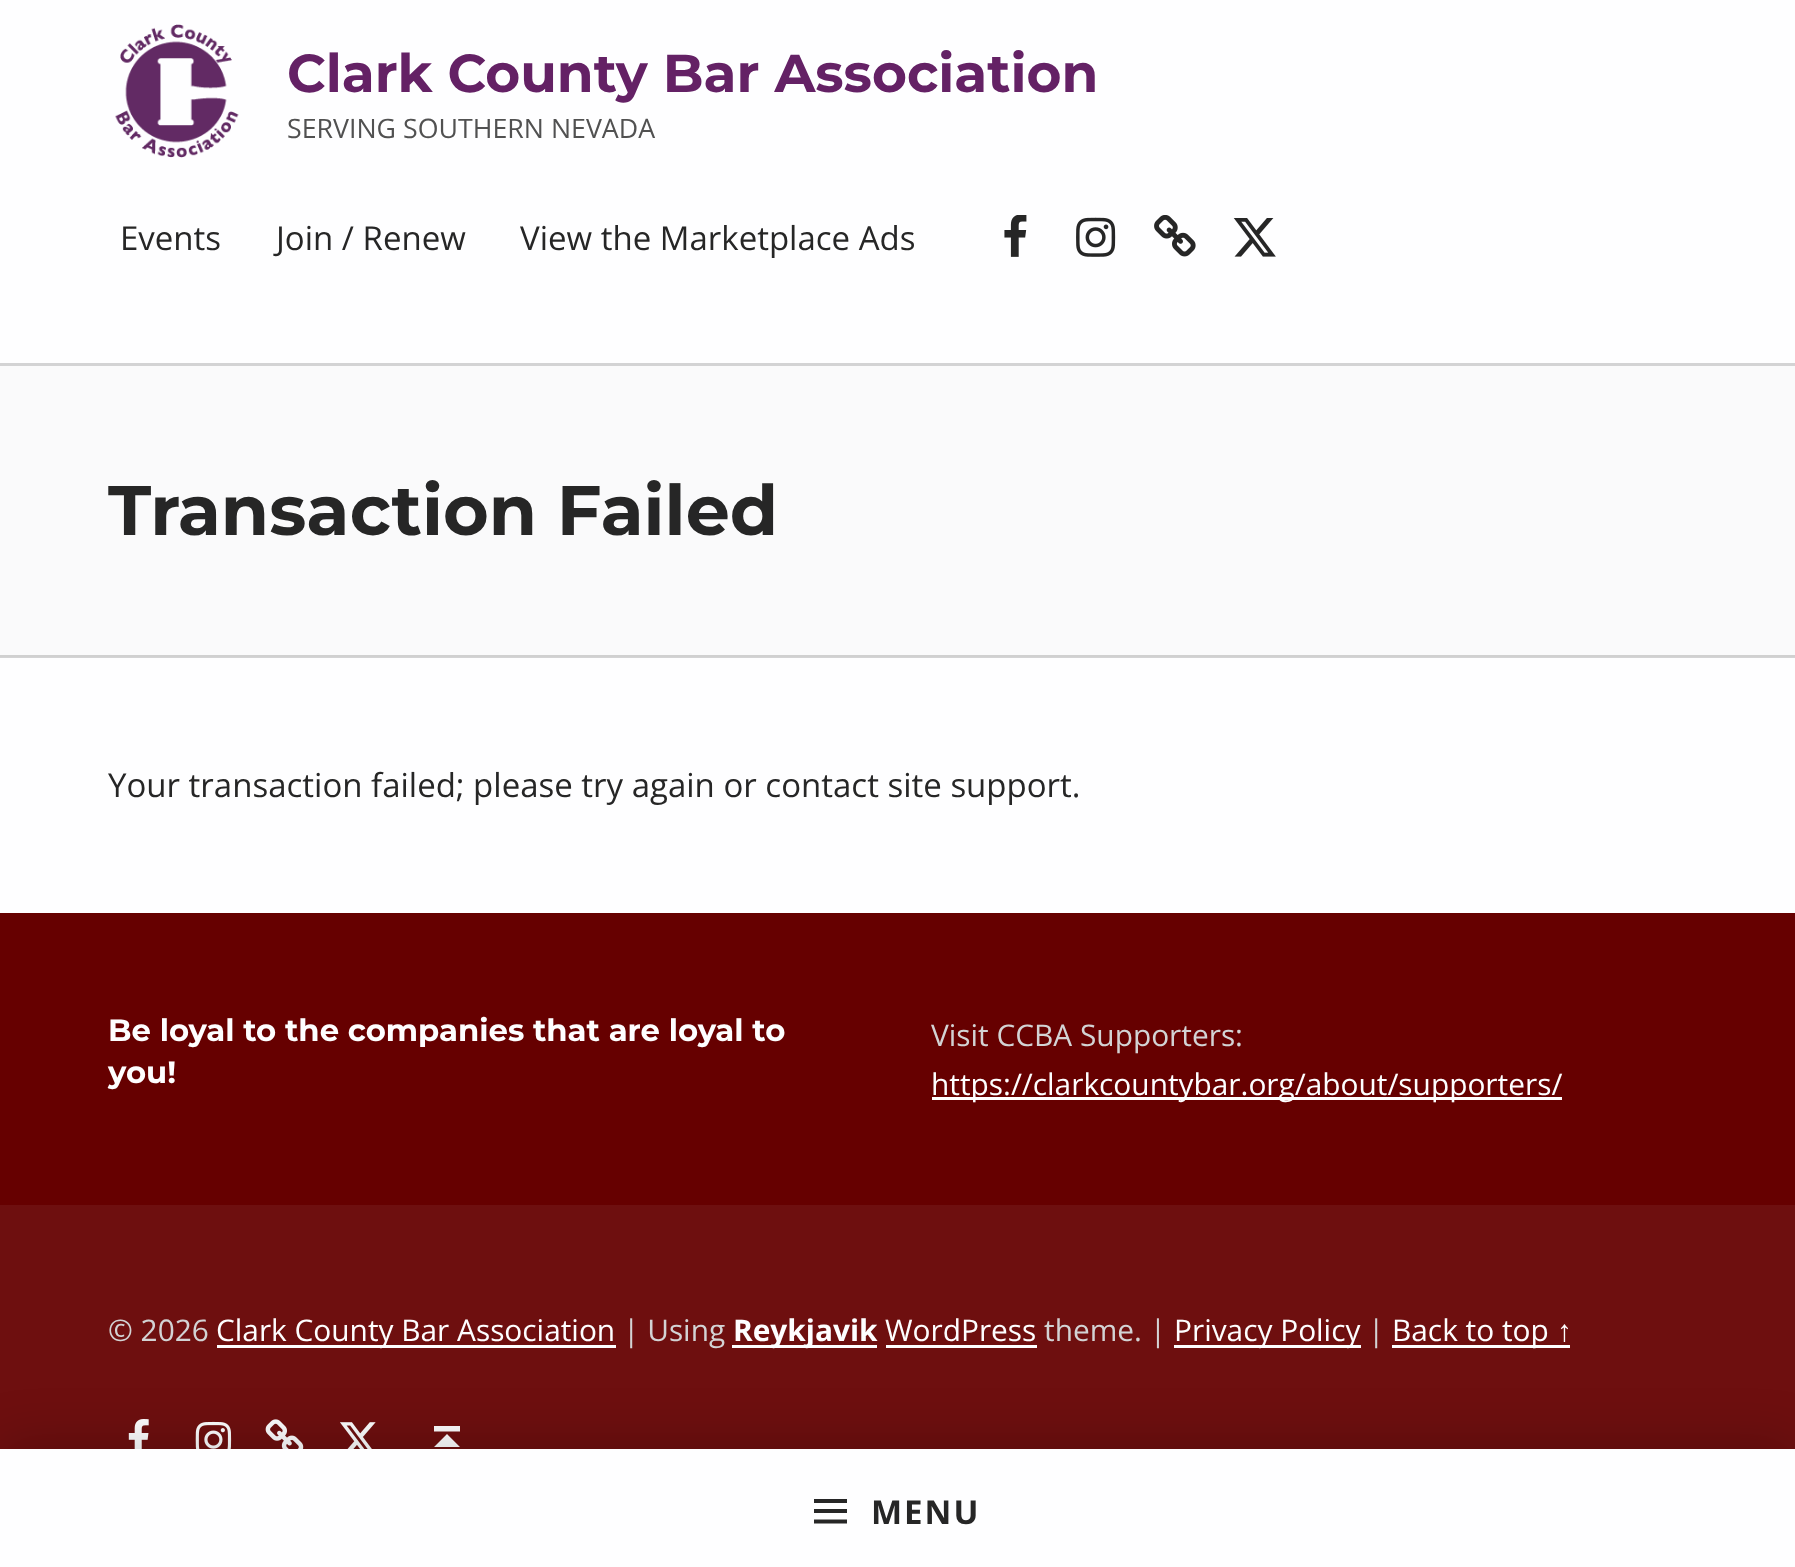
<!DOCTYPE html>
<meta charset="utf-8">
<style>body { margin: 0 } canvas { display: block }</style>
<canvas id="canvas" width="1795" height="1567"></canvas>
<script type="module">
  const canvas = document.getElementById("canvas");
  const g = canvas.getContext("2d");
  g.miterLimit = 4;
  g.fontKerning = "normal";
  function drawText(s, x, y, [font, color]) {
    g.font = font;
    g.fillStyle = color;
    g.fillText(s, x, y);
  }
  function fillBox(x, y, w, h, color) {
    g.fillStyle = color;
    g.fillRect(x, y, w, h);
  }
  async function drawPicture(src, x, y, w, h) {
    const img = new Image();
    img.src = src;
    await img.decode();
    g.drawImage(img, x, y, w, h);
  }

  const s1 = ["bold 53.4px Montserrat", "#642165"];
  const s2 = ["26.75px Open Sans", "#515151"];
  const s3 = ["33px Open Sans", "#262626"];
  const s4 = ["bold 33px Open Sans", "#262626"];
  const s5 = ["bold 69.9px Montserrat", "#262626"];
  const s6 = ["bold 30.75px Montserrat", "#FEFEFF"];
  const s7 = ["29.85px Open Sans", "#D3D3D4"];
  const s8 = ["29.85px Open Sans", "#FEFEFF"];
  const s9 = ["bold 29.85px Open Sans", "#FEFEFF"];
  const s10 = ["29.85px Liberation Sans", "#FEFEFF"];

  fillBox(0, 0, 1795, 1567, "#FEFEFF");
  fillBox(0, 363, 1795, 3, "#D3D3D4");
  await drawPicture("pic1.png", 115, 24, 124, 134);
  drawText("Clark County Bar Association", 287, 92, s1);
  drawText("SERVING SOUTHERN NEVADA", 287, 138, s2);
  drawText("Events", 120, 250, s3);
  drawText("Join / Renew", 276, 250, s3);
  drawText("View the Marketplace Ads", 520, 250, s3);
  await drawPicture("pic2.png", 1004, 215, 23, 42);
  await drawPicture("pic3.png", 1076, 217, 40, 40);
  await drawPicture("pic4.png", 1154, 215, 42, 42);
  await drawPicture("pic5.png", 1233, 218, 43, 39);
  fillBox(0, 1205, 1795, 244, "#6E0F0F");
  await drawPicture("pic6.png", 128, 1419, 21, 30);
  await drawPicture("pic7.png", 195, 1421, 37, 28);
  await drawPicture("pic8.png", 265, 1419, 39, 30);
  await drawPicture("pic9.png", 340, 1422, 36, 27);
  g.fillStyle = "#FEFEFF";
  g.beginPath();
  g.moveTo(434, 1447);
  g.lineTo(447, 1434);
  g.lineTo(460, 1447);
  g.closePath();
  g.moveTo(434, 1426);
  g.lineTo(460, 1426);
  g.lineTo(460, 1431.5);
  g.lineTo(434, 1431.5);
  g.closePath();
  g.fill();
  g.fillStyle = "rgba(0, 0, 0, 0.2)";
  g.filter = "blur(26.5px)";
  g.beginPath();
  g.rect(0, 1444, 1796, 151);
  g.fill();
  g.filter = "none";
  fillBox(0, 1449, 1795, 118, "#FEFEFF");
  g.fillStyle = "#262626";
  g.beginPath();
  g.moveTo(814, 1523.5);
  g.lineTo(814, 1519.5);
  g.lineTo(847, 1519.5);
  g.lineTo(847, 1523.5);
  g.closePath();
  g.moveTo(814, 1499);
  g.lineTo(847, 1499);
  g.lineTo(847, 1503);
  g.lineTo(814, 1503);
  g.closePath();
  g.moveTo(814, 1513);
  g.lineTo(814, 1509);
  g.lineTo(847, 1509);
  g.lineTo(847, 1513);
  g.closePath();
  g.fill();
  g.letterSpacing = "2px";
  drawText("MENU", 871, 1524, s4);
  fillBox(0, 366, 1795, 291, "#FAFAFB");
  fillBox(0, 655, 1795, 3, "rgba(38, 38, 38, 0.2)");
  g.letterSpacing = "0px";
  drawText("Transaction Failed", 108, 535, s5);
  drawText("Your transaction failed; please try again or contact site support.", 108, 797, s3);
  fillBox(0, 913, 1795, 292, "#660000");
  drawText("Be loyal to the companies that are loyal to", 108, 1041, s6);
  drawText("you!", 108, 1083, s6);
  drawText("Visit CCBA Supporters:", 931, 1046, s7);
  fillBox(932, 1097, 630, 3, "#FEFEFF");
  drawText("https://clarkcountybar.org/about/supporters/", 931, 1095, s8);
  drawText("© 2026", 108, 1341, s7);
  fillBox(217, 1345, 399, 3, "#FEFEFF");
  drawText("Clark County Bar Association", 216, 1341, s8);
  drawText("| Using", 623, 1341, s7);
  fillBox(732, 1345, 145, 3, "#FEFEFF");
  drawText("Reykjavik", 733, 1341, s9);
  drawText("WordPress", 885, 1341, s8);
  fillBox(886, 1345, 151, 3, "#FEFEFF");
  drawText("theme. |", 1044, 1341, s7);
  fillBox(1174, 1345, 187, 3, "#FEFEFF");
  drawText("Privacy Policy", 1174, 1341, s8);
  drawText("|", 1368, 1341, s7);
  fillBox(1392, 1345, 178, 3, "#FEFEFF");
  drawText("Back to top", 1392, 1341, s8);
  drawText("↑", 1557, 1341, s10);
</script>
